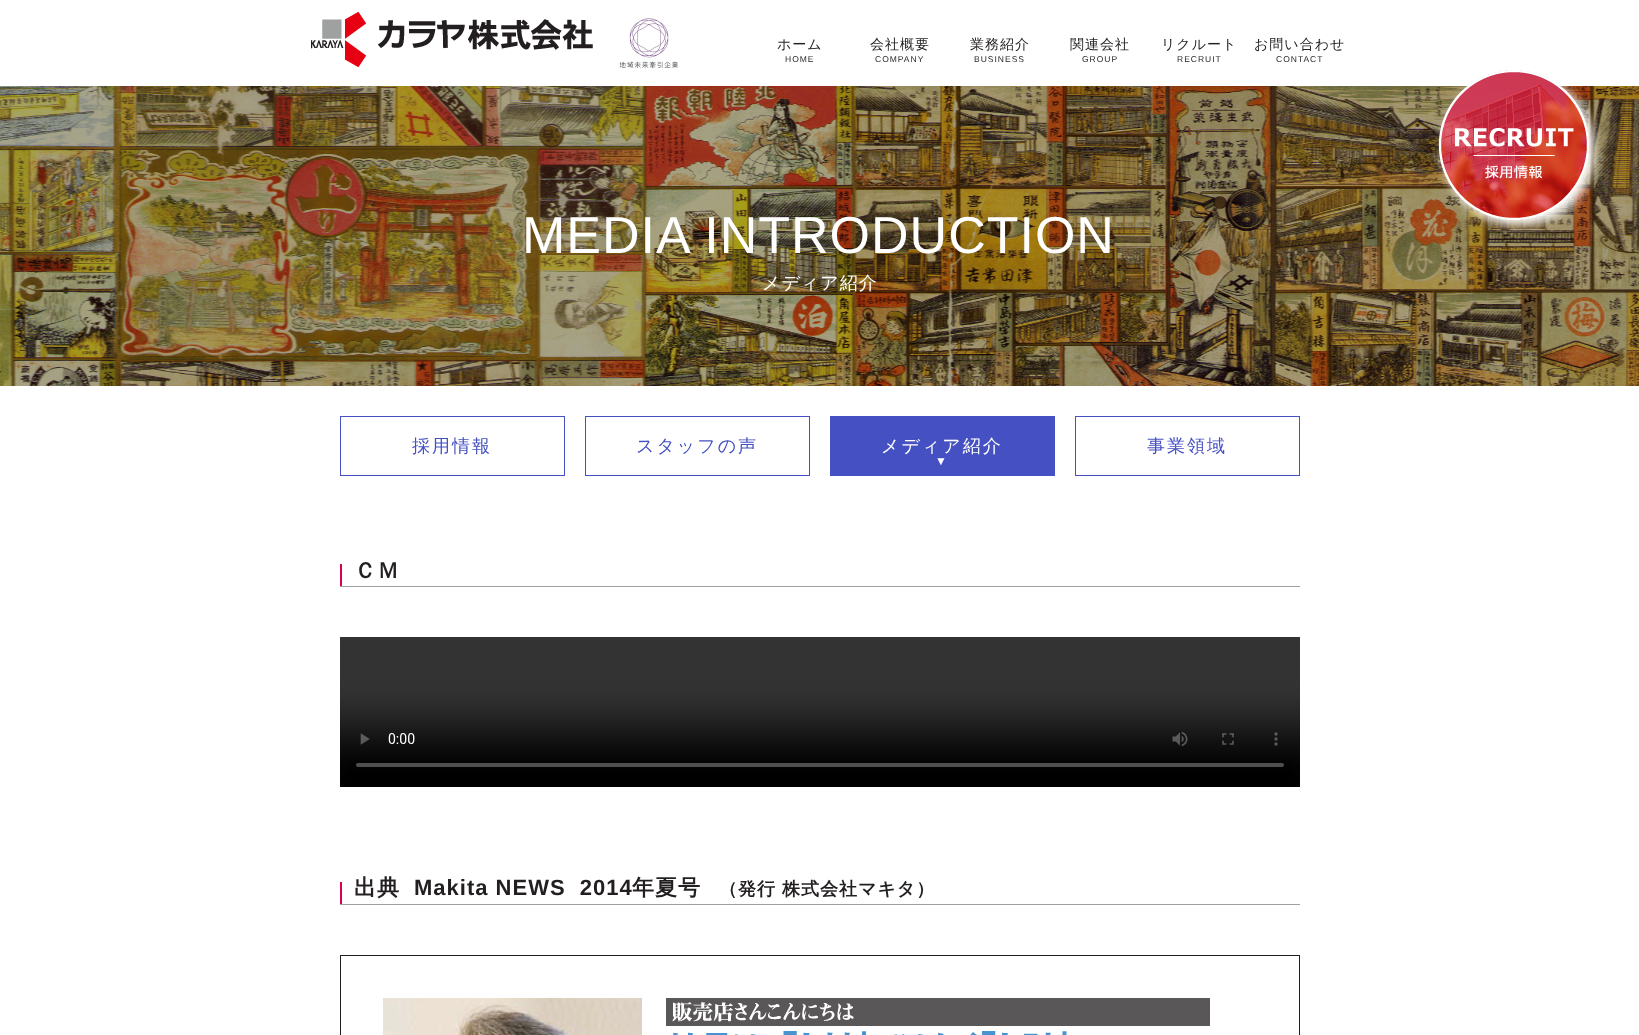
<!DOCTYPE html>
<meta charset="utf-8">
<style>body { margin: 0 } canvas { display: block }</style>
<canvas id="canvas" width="1639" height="1035"></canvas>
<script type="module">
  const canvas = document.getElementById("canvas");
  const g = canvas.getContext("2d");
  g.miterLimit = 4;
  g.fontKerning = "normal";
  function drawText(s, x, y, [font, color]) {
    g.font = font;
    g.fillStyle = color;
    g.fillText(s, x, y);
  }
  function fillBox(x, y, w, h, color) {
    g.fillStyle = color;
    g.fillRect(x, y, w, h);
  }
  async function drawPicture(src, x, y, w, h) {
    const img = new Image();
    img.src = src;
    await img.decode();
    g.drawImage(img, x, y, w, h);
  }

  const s1 = ["500 14px WenQuanYi Zen Hei", "#231F20"];
  const s2 = ["8.5px Liberation Sans", "#231F20"];
  const s3 = ["52px Liberation Sans", "#FFFFFF"];
  const s4 = ["500 18px WenQuanYi Zen Hei", "#FFFFFF"];
  const s5 = ["500 18px WenQuanYi Zen Hei", "#4551C2"];
  const s6 = ["12px Liberation Sans", "#FFFFFF"];
  const s7 = ["bold 22px WenQuanYi Zen Hei", "#231F20"];
  const s8 = ["bold 22px Liberation Sans", "#231F20"];
  const s9 = ["bold 18px WenQuanYi Zen Hei", "#231F20"];

  fillBox(0, 0, 1639, 1035, "#FFFFFF");
  await drawPicture("pic1.png", 311, 12, 282, 55);
  await drawPicture("pic2.png", 619, 18, 59, 51);
  g.letterSpacing = "1px";
  drawText("ホーム", 777, 49, s1);
  drawText("HOME", 785, 62, s2);
  drawText("会社概要", 870, 49, s1);
  drawText("COMPANY", 875, 62, s2);
  drawText("業務紹介", 970, 49, s1);
  drawText("BUSINESS", 974, 62, s2);
  drawText("関連会社", 1070, 49, s1);
  drawText("GROUP", 1082, 62, s2);
  drawText("リクルート", 1161, 49, s1);
  drawText("RECRUIT", 1177, 62, s2);
  drawText("お問い合わせ", 1254, 49, s1);
  drawText("CONTACT", 1276, 62, s2);
  await drawPicture("pic4.png", 0, 86, 1639, 300);
  await drawPicture("pic3.png", 1434, 70, 170, 165);
  drawText("MEDIA INTRODUCTION", 522, 253, s3);
  drawText("メディア紹介", 762, 289, s4);
  g.strokeStyle = "#4551C2";
  g.strokeRect(340.5, 416.5, 224, 59);
  g.letterSpacing = "2px";
  drawText("採用情報", 412, 452, s5);
  g.strokeRect(585.5, 416.5, 224, 59);
  drawText("スタッフの声", 636, 452, s5);
  fillBox(830, 416, 225, 60, "#4551C2");
  drawText("メディア紹介", 881, 452, s4);
  drawText("▼", 935, 465, s6);
  g.strokeRect(1075.5, 416.5, 224, 59);
  drawText("事業領域", 1147, 452, s5);
  fillBox(340, 586, 960, 1, "#9FA0A0");
  fillBox(340, 564, 2, 22, "#D70051");
  g.letterSpacing = "1px";
  drawText("ＣＭ", 354, 578, s7);
  await drawPicture("pic5.png", 340, 637, 960, 150);
  fillBox(340, 904, 960, 1, "#9FA0A0");
  fillBox(340, 882, 2, 22, "#D70051");
  drawText("出典", 354, 895, s7);
  drawText("Makita NEWS  2014", 414, 895, s8);
  drawText("年夏号", 632, 895, s7);
  drawText("（発行", 719, 895, s9);
  drawText("株式会社マキタ）", 782, 895, s9);
  await drawPicture("pic6.png", 340, 955, 960, 80);
</script>
